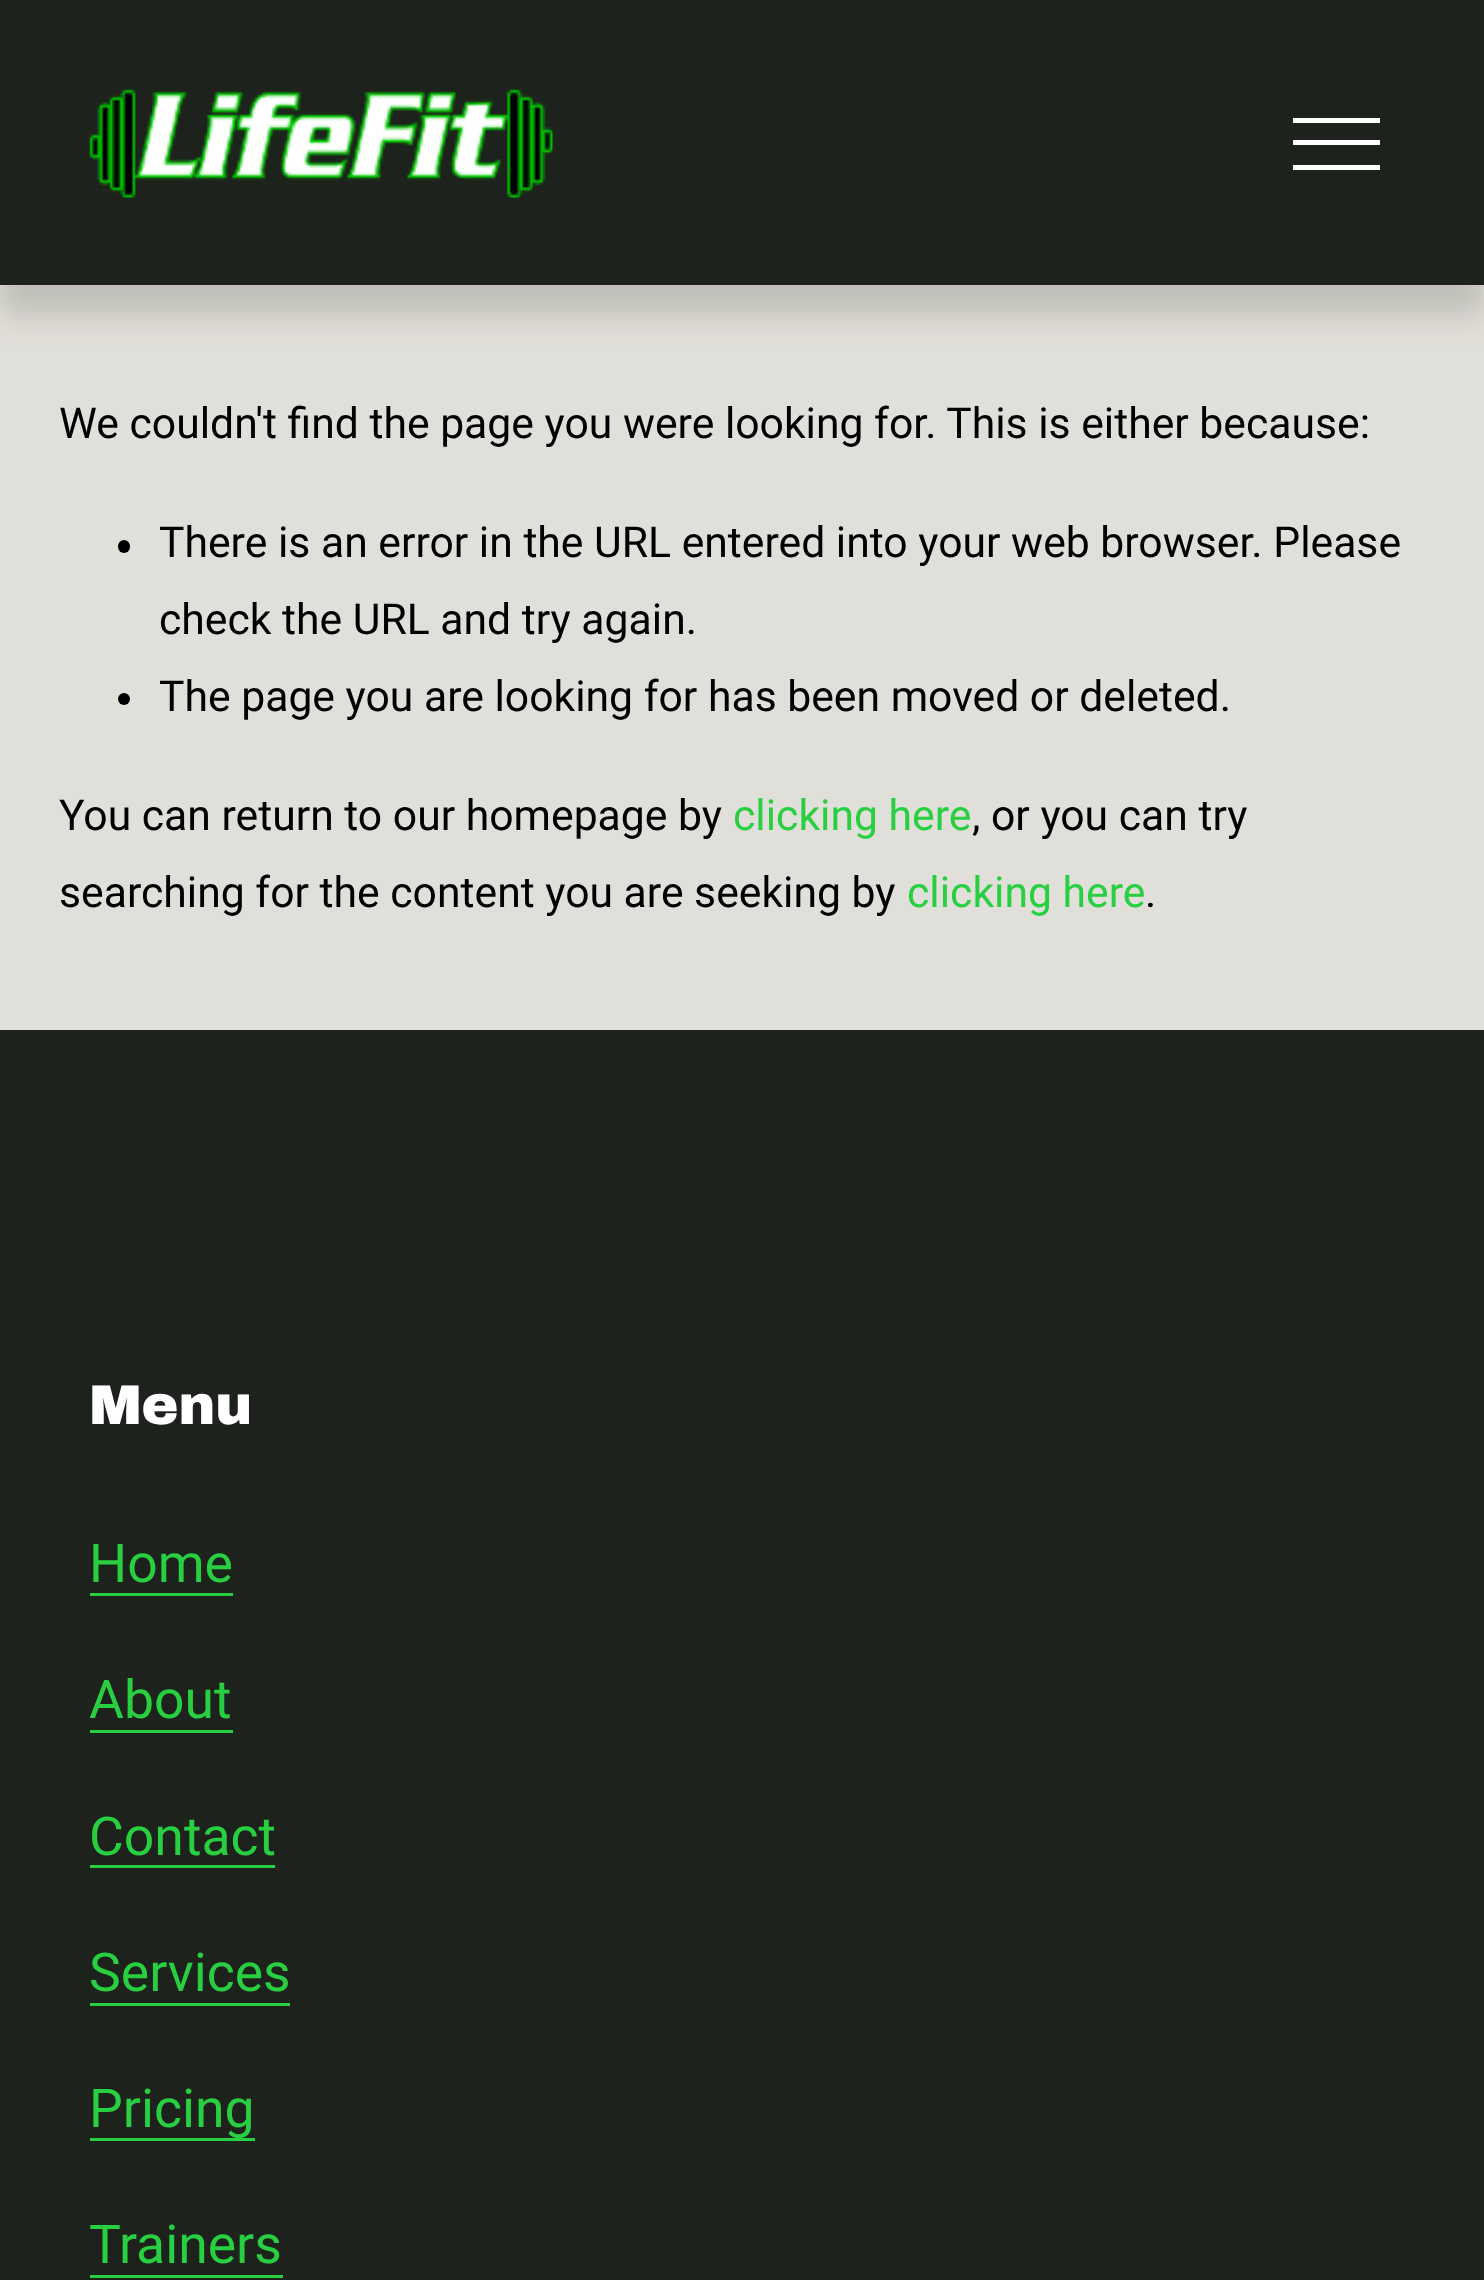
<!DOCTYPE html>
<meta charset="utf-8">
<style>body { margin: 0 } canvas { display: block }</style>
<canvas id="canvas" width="1484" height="2280"></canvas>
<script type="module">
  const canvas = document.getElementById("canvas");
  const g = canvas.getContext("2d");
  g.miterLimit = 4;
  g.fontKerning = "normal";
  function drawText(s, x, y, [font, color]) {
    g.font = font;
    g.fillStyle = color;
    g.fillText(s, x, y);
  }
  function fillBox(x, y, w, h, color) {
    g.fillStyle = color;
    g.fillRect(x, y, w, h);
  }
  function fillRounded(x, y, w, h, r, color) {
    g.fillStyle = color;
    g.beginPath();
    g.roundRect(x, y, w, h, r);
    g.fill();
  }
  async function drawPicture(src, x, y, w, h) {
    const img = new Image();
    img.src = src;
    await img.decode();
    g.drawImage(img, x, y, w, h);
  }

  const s1 = ["42.7px Roboto", "#000000"];
  const s2 = ["42.7px Roboto", "#28CF41"];
  const s3 = ["900 56px Archivo Black", "#FFFFFF"];
  const s4 = ["53.5px Roboto", "#28CF41"];

  fillBox(0, 0, 1484, 2280, "#E1DFD9");
  fillBox(0, 0, 1484, 285, "#1D231C");
  g.save();
  g.beginPath();
  g.rect(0, 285, 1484, 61);
  g.clip();
  g.fillStyle = "#BFBEB8";
  g.filter = "blur(15px)";
  g.beginPath();
  g.rect(0, 30, 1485, 285);
  g.fill();
  g.filter = "none";
  g.restore();
  await drawPicture("pic1.png", 89, 89, 464, 109);
  fillBox(1293, 118, 87, 5, "#FFFFFF");
  fillBox(1293, 140, 87, 5, "#FFFFFF");
  fillBox(1293, 165, 87, 5, "#FFFFFF");
  drawText("We couldn't find the page you were looking for. This is either because:", 59, 438, s1);
  fillRounded(118, 540, 12, 13, 6, "#000000");
  drawText("There is an error in the URL entered into your web browser. Please", 159, 557, s1);
  drawText("check the URL and try again.", 159, 634, s1);
  g.beginPath();
  g.arc(124, 699, 6, 0, Math.PI * 2);
  g.fill();
  drawText("The page you are looking for has been moved or deleted.", 159, 711, s1);
  drawText("You can return to our homepage by", 59, 830, s1);
  drawText("clicking here", 733, 830, s2);
  drawText(", or you can try", 972, 830, s1);
  drawText("searching for the content you are seeking by", 59, 907, s1);
  drawText("clicking here", 907, 907, s2);
  drawText(".", 1145, 907, s1);
  fillBox(0, 1030, 1484, 1250, "#1D231C");
  g.letterSpacing = "-0.5px";
  drawText("Menu", 89, 1424, s3);
  g.letterSpacing = "0px";
  drawText("Home", 89, 1582, s4);
  fillBox(90, 1593, 143, 3, "#28CF41");
  drawText("About", 89, 1718, s4);
  fillBox(90, 1730, 143, 3, "#28CF41");
  drawText("Contact", 89, 1855, s4);
  fillBox(90, 1865, 185, 3, "#28CF41");
  drawText("Services", 89, 1991, s4);
  fillBox(90, 2003, 200, 3, "#28CF41");
  fillBox(90, 2138, 165, 3, "#28CF41");
  drawText("Pricing", 89, 2127, s4);
  drawText("Trainers", 89, 2263, s4);
  fillBox(90, 2275, 193, 3, "#28CF41");
</script>
